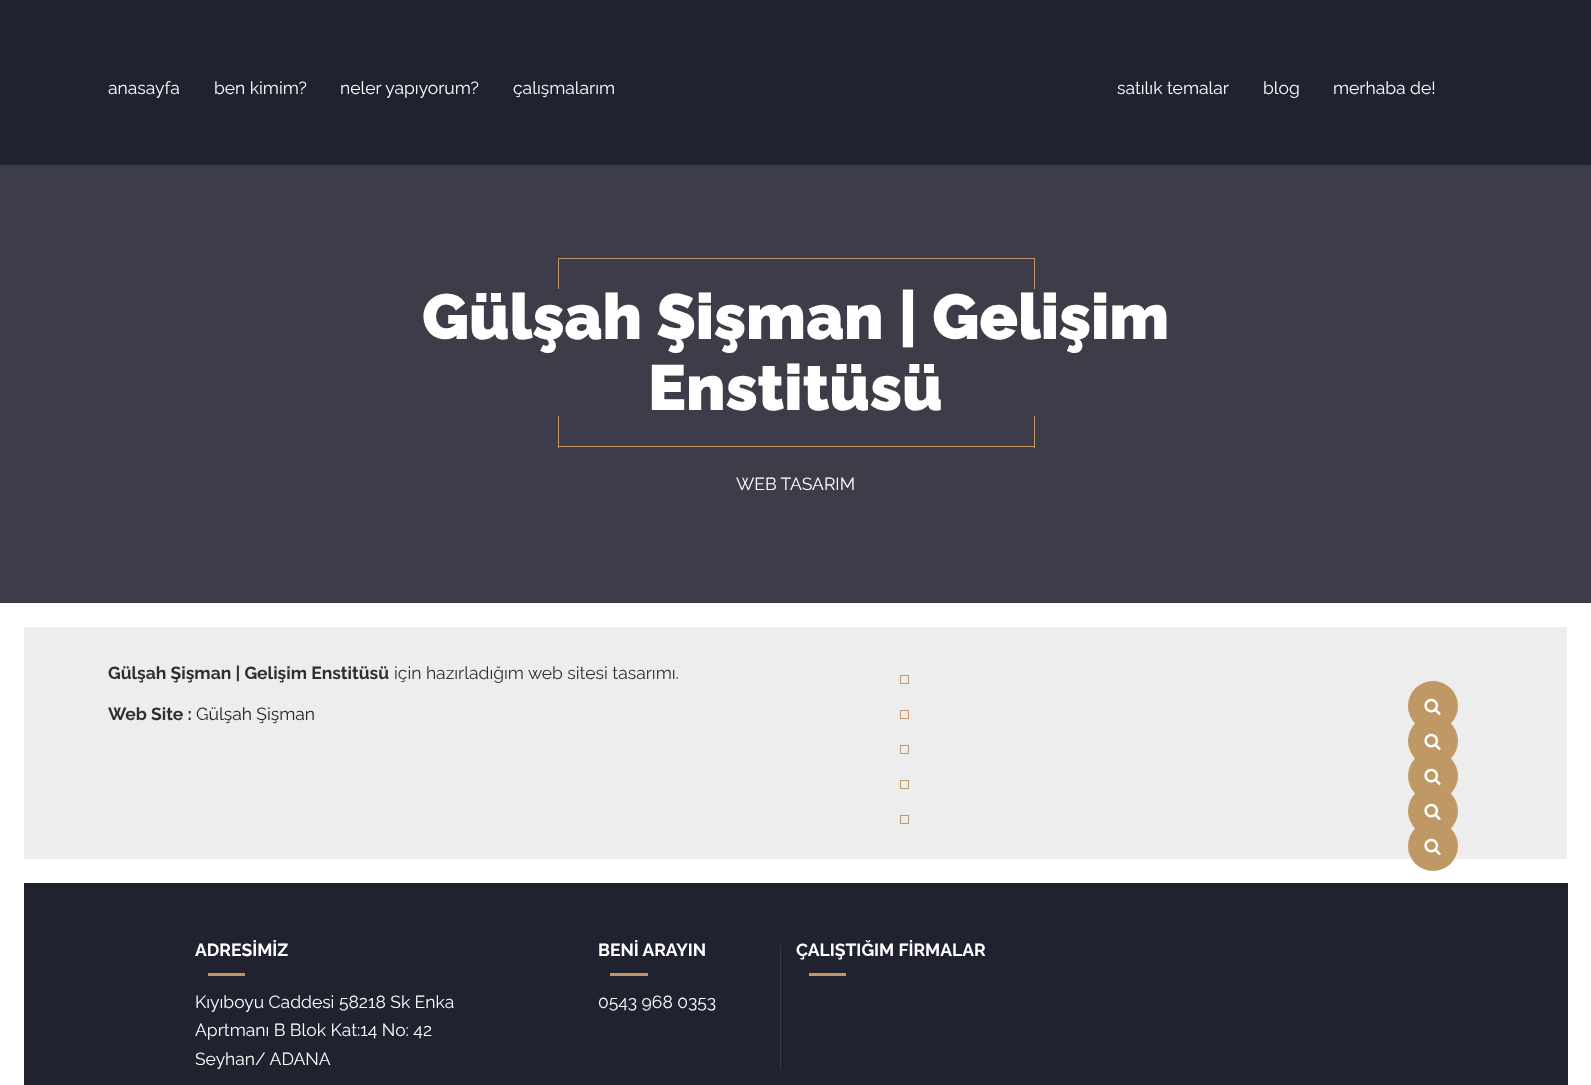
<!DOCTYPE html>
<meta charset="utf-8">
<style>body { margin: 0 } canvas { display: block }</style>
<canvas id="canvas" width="1591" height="1085"></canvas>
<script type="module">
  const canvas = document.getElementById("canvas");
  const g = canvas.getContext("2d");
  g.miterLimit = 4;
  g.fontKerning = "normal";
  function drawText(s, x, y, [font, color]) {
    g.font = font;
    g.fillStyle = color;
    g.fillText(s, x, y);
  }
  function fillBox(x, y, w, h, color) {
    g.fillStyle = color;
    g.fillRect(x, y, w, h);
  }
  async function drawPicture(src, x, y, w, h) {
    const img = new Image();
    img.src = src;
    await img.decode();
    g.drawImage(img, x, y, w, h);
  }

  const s1 = ["17.5px Raleway", "#FFFFFF"];
  const s2 = ["900 63.75px Raleway", "#FFFFFF"];
  const s3 = ["bold 17.5px Raleway", "#2F2F2F"];
  const s4 = ["17.5px Raleway", "#2F2F2F"];
  const s5 = ["17.5px Raleway", "#222222"];
  const s6 = ["bold 17.5px Raleway", "#FFFFFF"];

  fillBox(0, 0, 1591, 1085, "#FFFFFF");
  fillBox(0, 0, 1591, 165, "#212230");
  drawText("anasayfa", 108, 94, s1);
  drawText("ben kimim?", 214, 94, s1);
  drawText("neler yapıyorum?", 340, 94, s1);
  drawText("çalışmalarım", 513, 94, s1);
  drawText("satılık temalar", 1117, 94, s1);
  drawText("blog", 1263, 94, s1);
  drawText("merhaba de!", 1333, 94, s1);
  fillBox(0, 165, 1591, 438, "#3C3D49");
  fillBox(558, 258, 477, 1, "#BF9865");
  fillBox(1034, 258, 1, 31, "#BF9865");
  fillBox(558, 258, 1, 31, "#BF9865");
  drawText("Gülşah Şişman | Gelişim", 422, 339, s2);
  drawText("Enstitüsü", 648, 410, s2);
  fillBox(1034, 416, 1, 32, "#BF9865");
  fillBox(558, 446, 477, 1, "#BF9865");
  fillBox(558, 416, 1, 32, "#BF9865");
  drawText("WEB TASARIM", 736, 490, s1);
  fillBox(24, 627, 1543, 232, "#EDEDED");
  drawText("Gülşah Şişman | Gelişim Enstitüsü", 108, 679, s3);
  drawText("için hazırladığım web sitesi tasarımı.", 394, 679, s4);
  drawText("Web Site :", 108, 720, s3);
  drawText("Gülşah Şişman", 196, 720, s5);
  g.strokeStyle = "#BF9865";
  g.strokeRect(900.5, 675.5, 8, 8);
  g.fillStyle = "#BF9865";
  g.beginPath();
  g.arc(1433, 706, 25, 0, Math.PI * 2);
  g.fill();
  await drawPicture("pic1.png", 1424, 698, 17, 17);
  g.strokeRect(900.5, 710.5, 8, 8);
  g.beginPath();
  g.arc(1433, 741, 25, 0, Math.PI * 2);
  g.fill();
  await drawPicture("pic1.png", 1424, 733, 17, 17);
  g.strokeRect(900.5, 745.5, 8, 8);
  g.beginPath();
  g.arc(1433, 776, 25, 0, Math.PI * 2);
  g.fill();
  await drawPicture("pic1.png", 1424, 768, 17, 17);
  g.strokeRect(900.5, 780.5, 8, 8);
  g.beginPath();
  g.arc(1433, 811, 25, 0, Math.PI * 2);
  g.fill();
  await drawPicture("pic1.png", 1424, 803, 17, 17);
  g.strokeRect(900.5, 815.5, 8, 8);
  g.beginPath();
  g.arc(1433, 846, 25, 0, Math.PI * 2);
  g.fill();
  await drawPicture("pic1.png", 1424, 838, 17, 17);
  fillBox(24, 883, 1544, 202, "#212230");
  drawText("ADRESİMİZ", 195, 956, s6);
  fillBox(208, 973, 37, 3, "#BF9865");
  drawText("Kıyıboyu Caddesi 58218 Sk Enka", 195, 1008, s1);
  drawText("Aprtmanı B Blok Kat:14 No: 42", 195, 1036, s1);
  drawText("Seyhan/ ADANA", 195, 1065, s1);
  drawText("BENİ ARAYIN", 598, 956, s6);
  fillBox(610, 973, 38, 3, "#BF9865");
  drawText("0543 968 0353", 598, 1008, s1);
  fillBox(780, 945, 1, 125, "#363743");
  drawText("ÇALIŞTIĞIM FİRMALAR", 796, 956, s6);
  fillBox(809, 973, 37, 3, "#BF9865");
</script>
